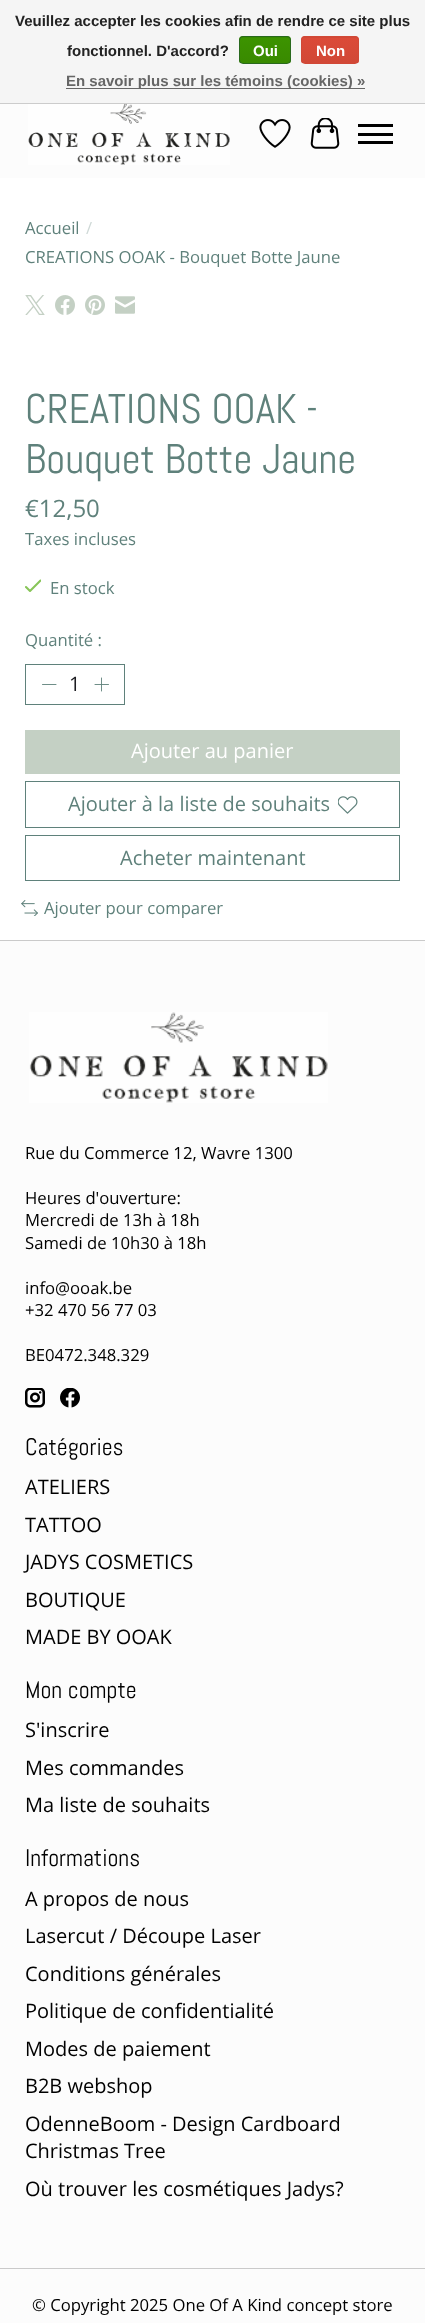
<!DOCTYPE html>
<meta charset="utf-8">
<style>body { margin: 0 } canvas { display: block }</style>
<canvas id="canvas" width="425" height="2323"></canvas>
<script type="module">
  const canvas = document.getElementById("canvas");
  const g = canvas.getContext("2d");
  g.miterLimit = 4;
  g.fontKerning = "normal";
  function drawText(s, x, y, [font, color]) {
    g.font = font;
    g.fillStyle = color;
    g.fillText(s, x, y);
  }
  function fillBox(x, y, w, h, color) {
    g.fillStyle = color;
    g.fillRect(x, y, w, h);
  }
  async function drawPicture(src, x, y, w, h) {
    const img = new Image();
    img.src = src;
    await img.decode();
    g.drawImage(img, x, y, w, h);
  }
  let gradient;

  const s1 = ["bold 15px Liberation Sans", "#222222"];
  const s2 = ["bold 15px Liberation Sans", "#FFFFFF"];
  const s3 = ["bold 15px Liberation Sans", "#666666"];
  const s4 = ["16.7px Open Sans", "#5F817B"];
  const s5 = ["16.7px Open Sans", "#CFD9D7"];
  const s6 = ["41.5px Abel", "#5F817B"];
  const s7 = ["24px Open Sans", "#5F817B"];
  const s8 = ["20px Open Sans", "#1C1C21"];
  const s9 = ["20px Open Sans", "#FFFFFF"];
  const s10 = ["20px Open Sans", "#5F817B"];
  const s11 = ["16.7px Open Sans", "#000000"];
  const s12 = ["24px Abel", "#000000"];
  const s13 = ["20px Open Sans", "#000000"];

  fillBox(0, 0, 425, 2323, "#FFFFFF");
  fillBox(0, 0, 425, 103, "#F5F5F5");
  fillBox(0, 103, 425, 1, "#CCCCCC");
  drawText("Veuillez accepter les cookies afin de rendre ce site plus", 15, 26, s1);
  drawText("fonctionnel. D'accord?", 67, 56, s1);
  g.save();
  g.beginPath();
  g.roundRect(239, 36, 52, 28, 4);
  g.clip();
  gradient = g.createLinearGradient(265, 12, 265, 38);
  gradient.addColorStop(0, "#3C9300");
  gradient.addColorStop(1, "#398A00");
  g.fillStyle = gradient;
  g.fillRect(239, 36, 52, 2);
  gradient = g.createLinearGradient(265, 38, 265, 63);
  gradient.addColorStop(0, "#3C9300");
  gradient.addColorStop(1, "#398A00");
  g.fillStyle = gradient;
  g.fillRect(239, 38, 52, 25);
  g.restore();
  g.beginPath();
  g.roundRect(239.5, 36.5, 51, 27, 3.5);
  g.strokeStyle = "#29691D";
  g.stroke();
  drawText("Oui", 253, 56, s2);
  g.save();
  g.beginPath();
  g.roundRect(301, 36, 58, 28, 4);
  g.clip();
  gradient = g.createLinearGradient(330, 12, 330, 38);
  gradient.addColorStop(0, "#DC4A38");
  gradient.addColorStop(1, "#D14836");
  g.fillStyle = gradient;
  g.fillRect(301, 36, 58, 2);
  gradient = g.createLinearGradient(330, 37, 330, 63);
  gradient.addColorStop(0, "#DC4A38");
  gradient.addColorStop(1, "#D14836");
  g.fillStyle = gradient;
  g.fillRect(301, 38, 58, 25);
  g.restore();
  g.beginPath();
  g.roundRect(301.5, 36.5, 57, 27, 3.5);
  g.strokeStyle = "#D14836";
  g.stroke();
  drawText("Non", 316, 56, s2);
  fillBox(66, 88, 299, 1, "#666666");
  drawText("En savoir plus sur les témoins (cookies) »", 66, 86, s3);
  fillBox(0, 104, 425, 74, "#FCFCFC");
  await drawPicture("pic1.png", 28, 104, 202, 61);
  await drawPicture("pic2.png", 259, 119, 32, 29);
  await drawPicture("pic3.png", 310, 118, 30, 31);
  fillBox(358, 133, 35, 3, "#000000");
  fillBox(358, 124, 35, 3, "#000000");
  fillBox(358, 141, 35, 3, "#000000");
  drawText("Accueil", 25, 234, s4);
  drawText("/", 86, 234, s5);
  drawText("CREATIONS OOAK - Bouquet Botte Jaune", 25, 263, s4);
  await drawPicture("pic4.png", 25, 295, 20, 20);
  await drawPicture("pic5.png", 55, 295, 20, 20);
  await drawPicture("pic6.png", 85, 295, 20, 20);
  await drawPicture("pic7.png", 115, 296, 20, 18);
  drawText("CREATIONS OOAK -", 25, 423, s6);
  drawText("Bouquet Botte Jaune", 25, 473, s6);
  drawText("€12,50", 25, 517, s7);
  drawText("Taxes incluses", 25, 545, s4);
  g.save();
  g.beginPath();
  g.rect(25, 578, 16, 16);
  g.clip();
  g.beginPath();
  g.moveTo(26, 587);
  g.lineTo(30, 591);
  g.lineTo(40.5, 580.5);
  g.strokeStyle = "#88C559";
  g.lineWidth = 2.1;
  g.lineCap = "round";
  g.lineJoin = "round";
  g.stroke();
  g.restore();
  drawText("En stock", 50, 594, s4);
  drawText("Quantité :", 25, 646, s4);
  g.strokeStyle = "#5F817B";
  g.strokeRect(25.5, 664.5, 99, 40);
  g.beginPath();
  g.moveTo(42.5, 684.5);
  g.lineTo(56, 684.5);
  g.lineWidth = 0.9;
  g.lineCap = "round";
  g.lineJoin = "round";
  g.stroke();
  drawText("1", 69, 691, s8);
  g.beginPath();
  g.moveTo(101.5, 678);
  g.lineTo(101.5, 691);
  g.moveTo(95, 684.5);
  g.lineTo(108.5, 684.5);
  g.stroke();
  fillBox(25, 730, 375, 44, "#C4D0C4");
  drawText("Ajouter au panier", 131, 758, s9);
  g.lineWidth = 1;
  g.lineJoin = "miter";
  g.strokeRect(25.5, 781.5, 374, 46);
  drawText("Ajouter à la liste de souhaits", 68, 811, s10);
  await drawPicture("pic8.png", 338, 796, 20, 18);
  g.strokeRect(25.5, 835.5, 374, 45);
  drawText("Acheter maintenant", 120, 865, s10);
  await drawPicture("pic9.png", 21, 900, 17, 16);
  drawText("Ajouter pour comparer", 44, 914, s4);
  fillBox(0, 941, 425, 1382, "#FCFCFC");
  fillBox(0, 940, 425, 1, "#CACACA");
  await drawPicture("pic10.png", 29, 1012, 299, 91);
  drawText("Rue du Commerce 12, Wavre 1300", 25, 1159, s11);
  drawText("Heures d'ouverture:", 25, 1204, s11);
  drawText("Mercredi de 13h à 18h", 25, 1226, s11);
  drawText("Samedi de 10h30 à 18h", 25, 1249, s11);
  drawText("info@ooak.be", 25, 1294, s11);
  drawText("+32 470 56 77 03", 25, 1316, s11);
  drawText("BE0472.348.329", 25, 1361, s11);
  await drawPicture("pic11.png", 25, 1388, 20, 20);
  await drawPicture("pic12.png", 60, 1388, 20, 20);
  drawText("Catégories", 25, 1455, s12);
  drawText("ATELIERS", 25, 1494, s13);
  drawText("TATTOO", 25, 1532, s13);
  drawText("JADYS COSMETICS", 25, 1569, s13);
  drawText("BOUTIQUE", 25, 1607, s13);
  drawText("MADE BY OOAK", 25, 1644, s13);
  drawText("Mon compte", 25, 1698, s12);
  drawText("S'inscrire", 25, 1737, s13);
  drawText("Mes commandes", 25, 1775, s13);
  drawText("Ma liste de souhaits", 25, 1812, s13);
  drawText("Informations", 25, 1866, s12);
  drawText("A propos de nous", 25, 1906, s13);
  drawText("Lasercut / Découpe Laser", 25, 1943, s13);
  drawText("Conditions générales", 25, 1981, s13);
  drawText("Politique de confidentialité", 25, 2018, s13);
  drawText("Modes de paiement", 25, 2056, s13);
  drawText("B2B webshop", 25, 2093, s13);
  drawText("OdenneBoom - Design Cardboard", 25, 2131, s13);
  drawText("Christmas Tree", 25, 2158, s13);
  drawText("Où trouver les cosmétiques Jadys?", 25, 2196, s13);
  fillBox(0, 2268, 425, 1, "#CACACA");
  drawText("© Copyright 2025 One Of A Kind concept store", 32, 2311, s11);
</script>
